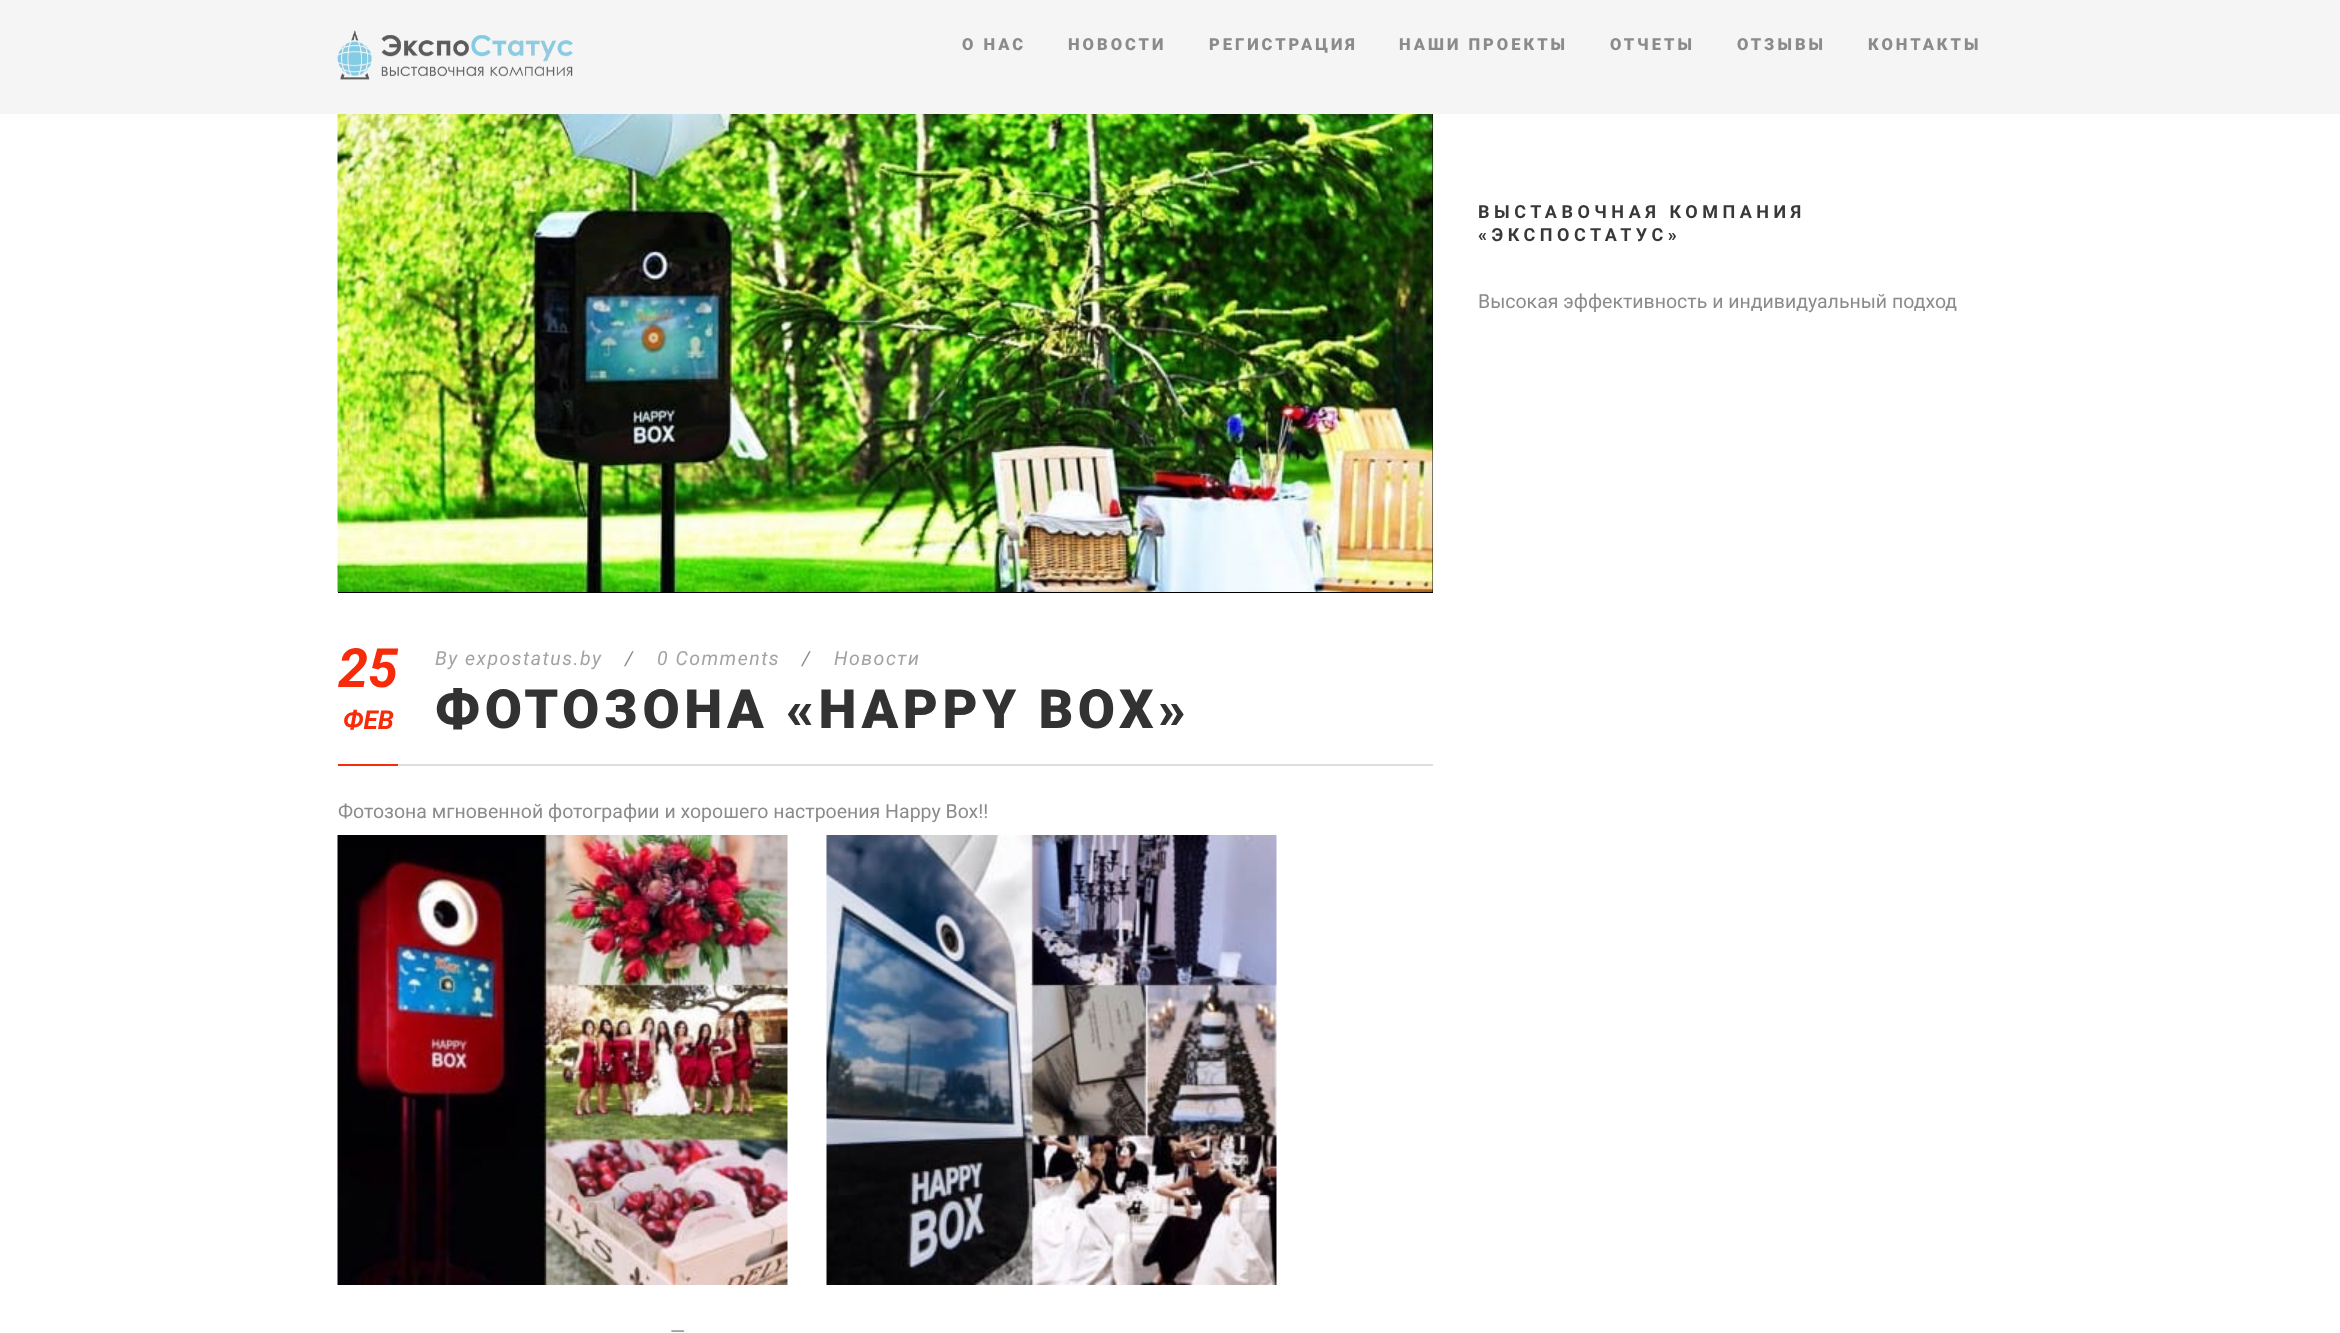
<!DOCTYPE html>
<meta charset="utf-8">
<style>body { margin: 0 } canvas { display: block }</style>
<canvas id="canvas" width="2340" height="1333"></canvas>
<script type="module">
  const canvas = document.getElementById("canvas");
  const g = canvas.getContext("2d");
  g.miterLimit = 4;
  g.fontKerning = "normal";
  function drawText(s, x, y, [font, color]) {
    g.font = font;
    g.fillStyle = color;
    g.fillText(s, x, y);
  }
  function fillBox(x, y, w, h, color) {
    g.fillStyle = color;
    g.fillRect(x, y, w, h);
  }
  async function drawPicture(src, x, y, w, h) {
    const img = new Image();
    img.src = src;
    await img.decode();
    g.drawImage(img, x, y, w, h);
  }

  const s1 = ["900 16.5px Roboto", "#8B8B8B"];
  const s2 = ["bold 18px Roboto", "#383838"];
  const s3 = ["19.5px Roboto", "#8B8B8B"];
  const s4 = ["italic bold 54px Roboto", "#F62B0A"];
  const s5 = ["italic bold 26px Roboto", "#F62B0A"];
  const s6 = ["italic 19.5px Roboto", "#A3A3A3"];
  const s7 = ["italic 19.5px Roboto", "#8B8B8B"];
  const s8 = ["900 54px Roboto", "#323232"];

  fillBox(0, 0, 2340, 1333, "#FFFFFF");
  fillBox(0, 0, 2340, 114, "#F5F5F5");
  await drawPicture("pic1.png", 337, 30, 236, 50);
  g.letterSpacing = "3px";
  drawText("О НАС", 962, 50, s1);
  drawText("НОВОСТИ", 1068, 50, s1);
  drawText("РЕГИСТРАЦИЯ", 1209, 50, s1);
  drawText("НАШИ ПРОЕКТЫ", 1399, 50, s1);
  drawText("ОТЧЕТЫ", 1610, 50, s1);
  drawText("ОТЗЫВЫ", 1737, 50, s1);
  drawText("КОНТАКТЫ", 1868, 50, s1);
  g.letterSpacing = "4.5px";
  drawText("ВЫСТАВОЧНАЯ КОМПАНИЯ", 1478, 218, s2);
  drawText("«ЭКСПОСТАТУС»", 1478, 241, s2);
  g.letterSpacing = "0px";
  drawText("Высокая эффективность и индивидуальный подход", 1478, 308, s3);
  fillBox(338, 114, 1095, 479, "#000000");
  await drawPicture("pic2.png", 337, 114, 1096, 478);
  fillBox(398, 764, 1035, 2, "#DDDDDD");
  drawText("25", 338, 687, s4);
  drawText("ФЕВ", 343, 729, s5);
  g.letterSpacing = "1.5px";
  drawText("By expostatus.by", 435, 665, s6);
  drawText("/", 625, 665, s7);
  drawText("0 Comments", 657, 665, s6);
  drawText("/", 802, 665, s7);
  drawText("Новости", 834, 665, s6);
  g.letterSpacing = "4.5px";
  drawText("ФОТОЗОНА «HAPPY BOX»", 435, 728, s8);
  fillBox(338, 764, 60, 2, "#F62B0A");
  g.letterSpacing = "0px";
  drawText("Фотозона мгновенной фотографии и хорошего настроения Happy Box!!", 338, 818, s3);
  await drawPicture("pic3.png", 337, 835, 451, 450);
  await drawPicture("pic4.png", 826, 835, 451, 450);
  drawText("—", 670, 1338, s3);
</script>
